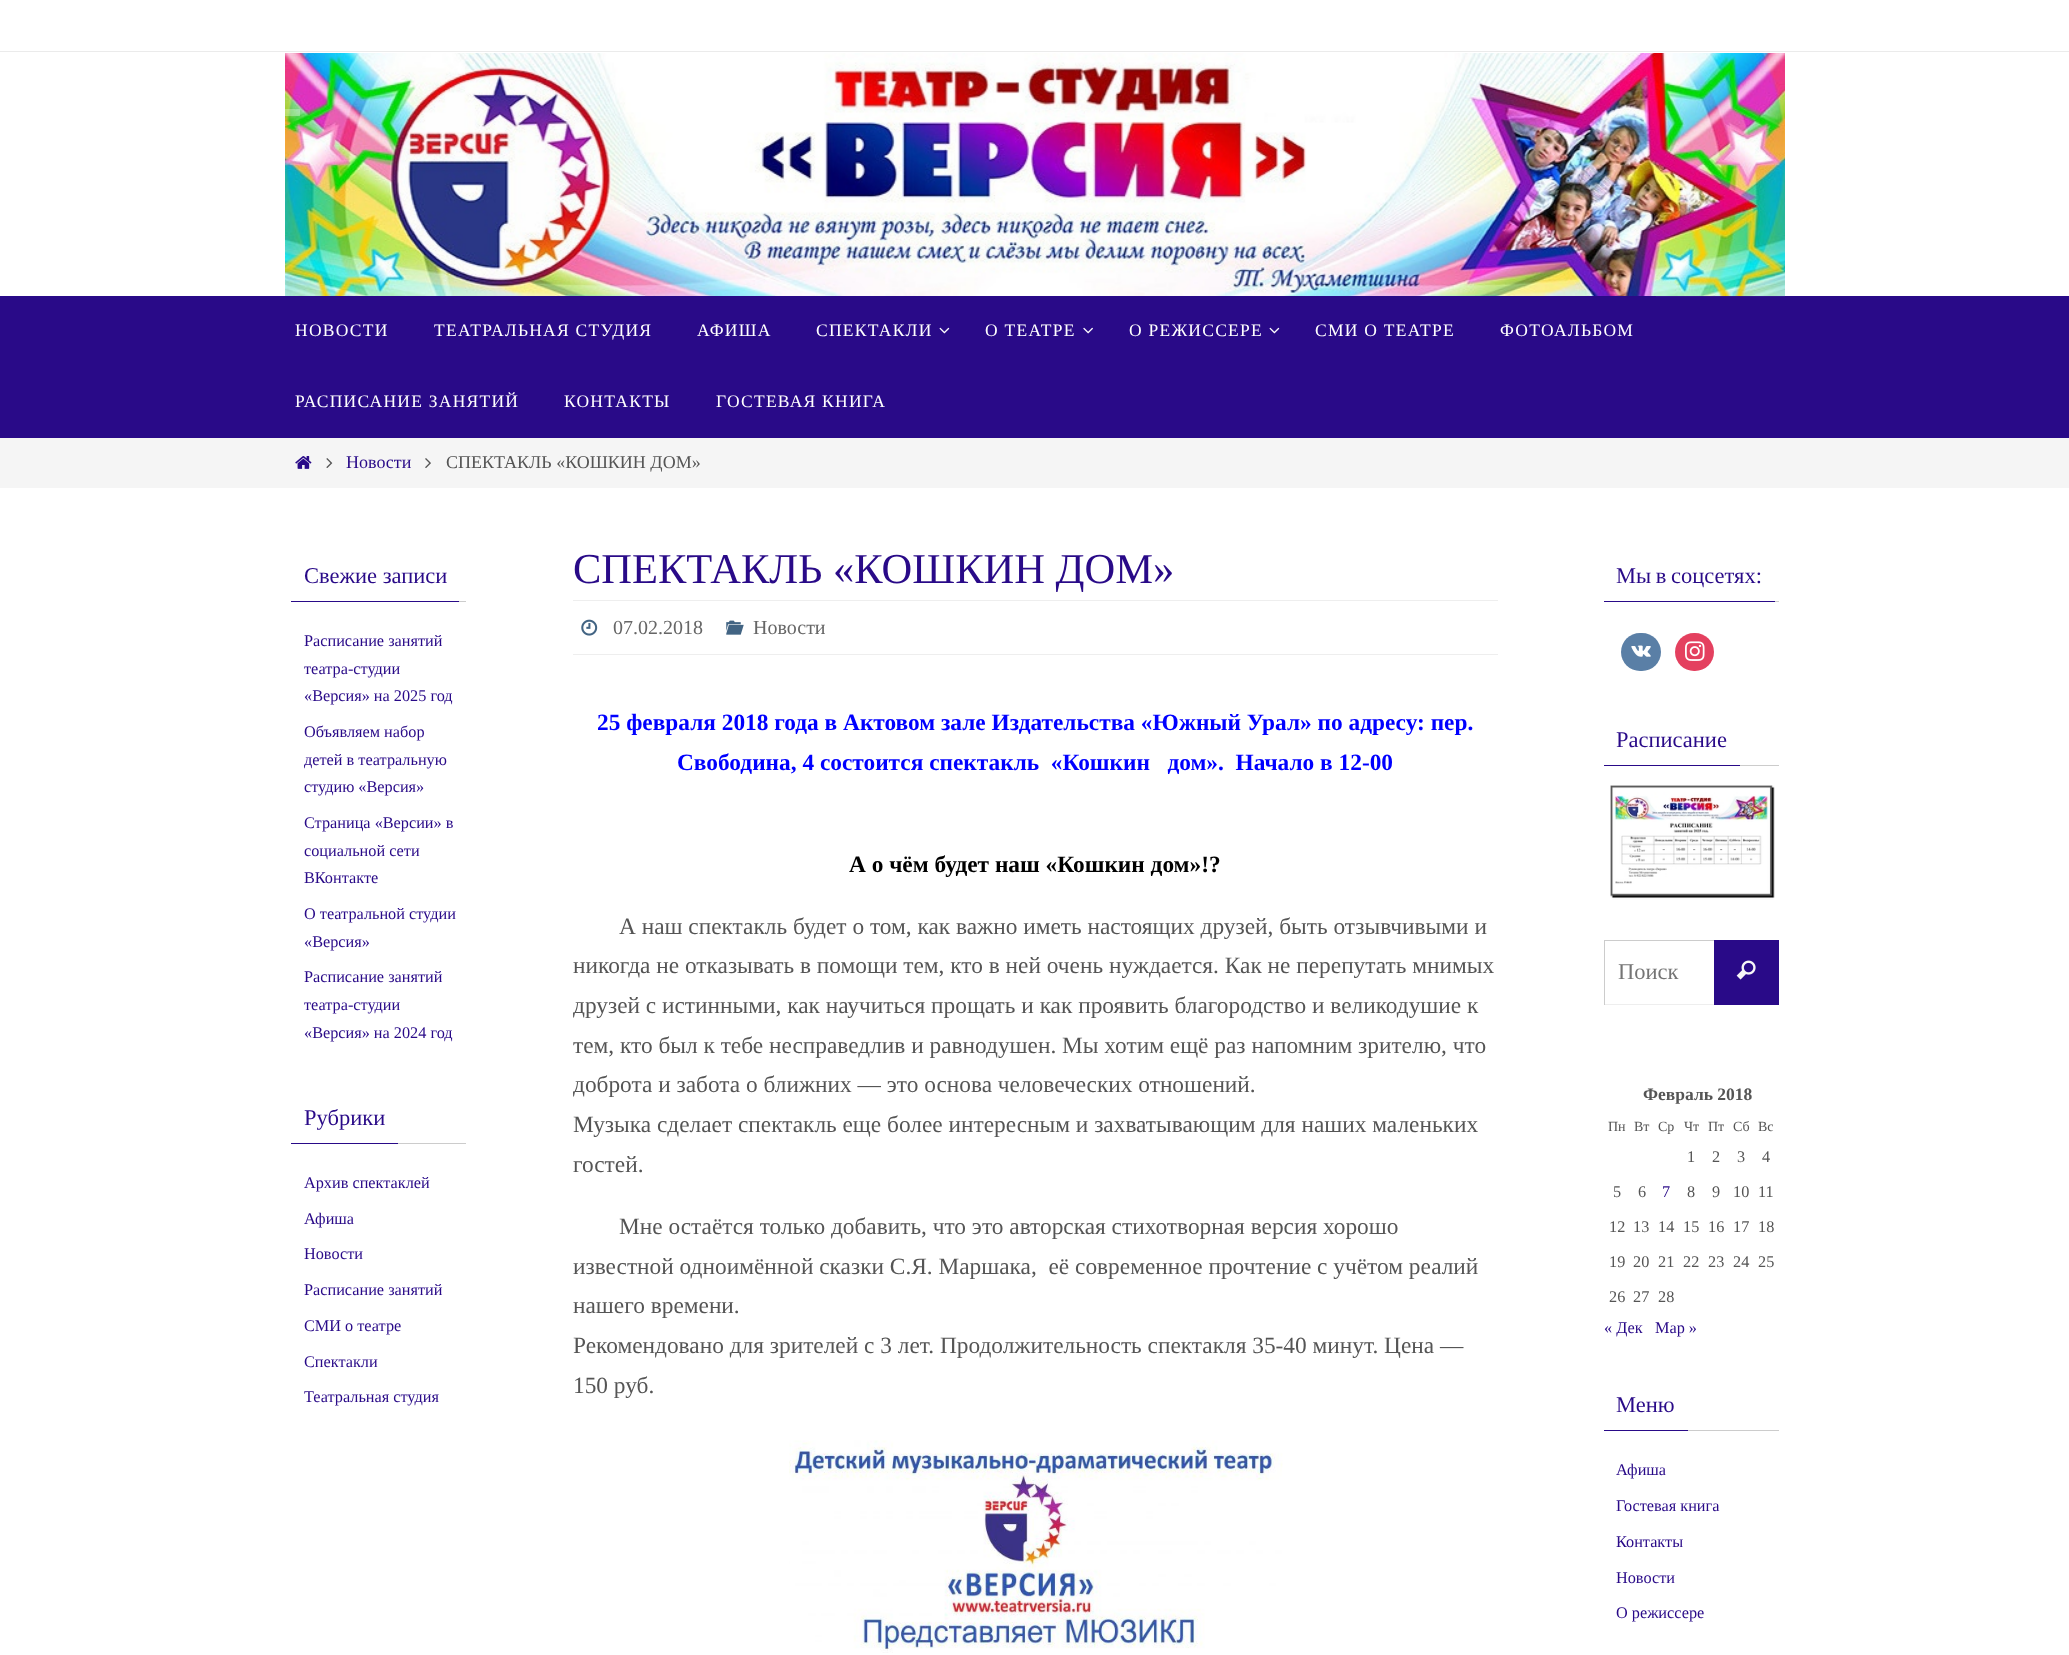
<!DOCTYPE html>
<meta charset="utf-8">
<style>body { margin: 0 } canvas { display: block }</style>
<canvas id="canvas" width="2069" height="1655"></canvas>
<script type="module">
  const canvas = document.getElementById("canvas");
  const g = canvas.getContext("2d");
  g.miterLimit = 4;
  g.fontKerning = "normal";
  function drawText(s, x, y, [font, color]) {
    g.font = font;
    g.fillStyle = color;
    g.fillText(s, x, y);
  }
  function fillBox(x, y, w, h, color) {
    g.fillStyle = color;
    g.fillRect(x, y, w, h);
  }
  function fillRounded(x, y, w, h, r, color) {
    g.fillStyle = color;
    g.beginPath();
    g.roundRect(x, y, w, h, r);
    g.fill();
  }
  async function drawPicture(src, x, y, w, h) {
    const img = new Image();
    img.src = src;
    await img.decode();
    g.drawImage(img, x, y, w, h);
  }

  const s1 = ["17.5px Liberation Serif", "#FFFFFF"];
  const s2 = ["18px Liberation Serif", "#290A88"];
  const s3 = ["18px Liberation Serif", "#555555"];
  const s4 = ["22.5px Liberation Serif", "#290A88"];
  const s5 = ["16.25px Liberation Serif", "#290A88"];
  const s6 = ["42.5px Liberation Serif", "#290A88"];
  const s7 = ["20px Liberation Serif", "#666666"];
  const s8 = ["bold 23.35px Liberation Serif", "#0000FF"];
  const s9 = ["bold 23.35px Liberation Serif", "#000000"];
  const s10 = ["23.35px Liberation Serif", "#555555"];
  const s11 = ["22.5px Liberation Serif", "#757575"];
  const s12 = ["bold 17.5px Liberation Serif", "#555555"];
  const s13 = ["14px Liberation Serif", "#555555"];
  const s14 = ["16.25px Liberation Serif", "#555555"];

  fillBox(0, 0, 2069, 1655, "#FFFFFF");
  fillBox(0, 51, 2069, 1, "#EBEBEB");
  fillBox(0, 296, 2069, 142, "#290A88");
  await drawPicture("pic1.png", 285, 53, 1500, 244);
  fillBox(285, 109, 15, 7, "rgba(255, 255, 255, 0.3)");
  fillBox(285, 296, 1371, 1, "#290A88");
  g.letterSpacing = "1.25px";
  drawText("НОВОСТИ", 295, 336, s1);
  drawText("ТЕАТРАЛЬНАЯ СТУДИЯ", 434, 336, s1);
  drawText("АФИША", 697, 336, s1);
  drawText("СПЕКТАКЛИ", 816, 336, s1);
  await drawPicture("pic2.png", 939, 327, 11, 7);
  drawText("О ТЕАТРЕ", 985, 336, s1);
  await drawPicture("pic3.png", 1083, 327, 10, 7);
  drawText("О РЕЖИССЕРЕ", 1129, 336, s1);
  await drawPicture("pic2.png", 1269, 327, 11, 7);
  drawText("СМИ О ТЕАТРЕ", 1315, 336, s1);
  drawText("ФОТОАЛЬБОМ", 1500, 336, s1);
  drawText("РАСПИСАНИЕ ЗАНЯТИЙ", 295, 407, s1);
  drawText("КОНТАКТЫ", 564, 407, s1);
  drawText("ГОСТЕВАЯ КНИГА", 716, 407, s1);
  fillBox(0, 438, 2069, 50, "#F5F5F5");
  await drawPicture("pic4.png", 295, 456, 17, 13);
  await drawPicture("pic5.png", 326, 458, 7, 10);
  g.letterSpacing = "0px";
  drawText("Новости", 346, 468, s2);
  await drawPicture("pic6.png", 425, 458, 6, 10);
  drawText("СПЕКТАКЛЬ «КОШКИН ДОМ»", 446, 468, s3);
  fillBox(459, 601, 7, 1, "#CCCCCC");
  fillBox(291, 601, 168, 1, "#290A88");
  drawText("Свежие записи", 304, 583, s4);
  drawText("Расписание занятий", 304, 646, s5);
  drawText("театра-студии", 304, 674, s5);
  drawText("«Версия» на 2025 год", 304, 701, s5);
  drawText("Объявляем набор", 304, 737, s5);
  drawText("детей в театральную", 304, 765, s5);
  drawText("студию «Версия»", 304, 792, s5);
  drawText("Страница «Версии» в", 304, 828, s5);
  drawText("социальной сети", 304, 856, s5);
  drawText("ВКонтакте", 304, 883, s5);
  drawText("О театральной студии", 304, 919, s5);
  drawText("«Версия»", 304, 947, s5);
  drawText("Расписание занятий", 304, 982, s5);
  drawText("театра-студии", 304, 1010, s5);
  drawText("«Версия» на 2024 год", 304, 1038, s5);
  fillBox(398, 1143, 68, 1, "#CCCCCC");
  fillBox(291, 1143, 107, 1, "#290A88");
  drawText("Рубрики", 304, 1125, s4);
  drawText("Архив спектаклей", 304, 1188, s5);
  drawText("Афиша", 304, 1224, s5);
  drawText("Новости", 304, 1259, s5);
  drawText("Расписание занятий", 304, 1295, s5);
  drawText("СМИ о театре", 304, 1331, s5);
  drawText("Спектакли", 304, 1367, s5);
  drawText("Театральная студия", 304, 1402, s5);
  drawText("СПЕКТАКЛЬ «КОШКИН ДОМ»", 573, 583, s6);
  fillBox(573, 600, 925, 1, "#EEEEEE");
  fillBox(573, 654, 925, 1, "#EEEEEE");
  await drawPicture("pic7.png", 581, 619, 17, 17);
  drawText("07.02.2018", 613, 634, s7);
  await drawPicture("pic8.png", 726, 620, 18, 15);
  drawText("Новости", 753, 634, s7);
  drawText("25 февраля 2018 года в Актовом зале Издательства «Южный Урал» по адресу: пер.", 597, 730, s8);
  drawText("Свободина, 4 состоится спектакль  «Кошкин   дом».  Начало в 12-00", 677, 770, s8);
  drawText("А о чём будет наш «Кошкин дом»!?", 849, 872, s9);
  drawText("А наш спектакль будет о том, как важно иметь настоящих друзей, быть отзывчивыми и", 619, 934, s10);
  drawText("никогда не отказывать в помощи тем, кто в ней очень нуждается. Как не перепутать мнимых", 573, 973, s10);
  g.save();
  g.beginPath();
  g.rect(573, 544, 925, 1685);
  g.clip();
  drawText("друзей с истинными, как научиться прощать и как проявить благородство и великодушие к", 573, 1013, s10);
  drawText("тем, кто был к тебе несправедлив и равнодушен. Мы хотим ещё раз напомним зрителю, что", 573, 1053, s10);
  drawText("доброта и забота о ближних — это основа человеческих отношений.", 573, 1092, s10);
  g.restore();
  drawText("Музыка сделает спектакль еще более интересным и захватывающим для наших маленьких", 573, 1132, s10);
  drawText("гостей.", 573, 1172, s10);
  drawText("Мне остаётся только добавить, что это авторская стихотворная версия хорошо", 619, 1234, s10);
  drawText("известной одноимённой сказки С.Я. Маршака,  её современное прочтение с учётом реалий", 573, 1274, s10);
  drawText("нашего времени.", 573, 1313, s10);
  drawText("Рекомендовано для зрителей с 3 лет. Продолжительность спектакля 35-40 минут. Цена —", 573, 1353, s10);
  drawText("150 руб.", 573, 1393, s10);
  await drawPicture("pic9.png", 789, 1440, 494, 213);
  fillBox(1775, 601, 4, 1, "#CCCCCC");
  fillBox(1604, 601, 171, 1, "#290A88");
  g.wordSpacing = "-1px";
  drawText("Мы в соцсетях:", 1616, 583, s4);
  fillRounded(1621, 633, 40, 38, 19, "#5A7FA6");
  await drawPicture("pic10.png", 1631, 645, 20, 12);
  fillRounded(1675, 633, 39, 38, 19, "#E4405F");
  await drawPicture("pic11.png", 1685, 641, 20, 20);
  fillBox(1740, 765, 39, 1, "#CCCCCC");
  fillBox(1604, 765, 136, 1, "#290A88");
  g.wordSpacing = "0px";
  drawText("Расписание", 1616, 747, s4);
  await drawPicture("pic12.png", 1610, 785, 165, 115);
  fillBox(1714, 940, 65, 65, "#290A88");
  fillBox(1604, 940, 110, 1, "#CCCCCC");
  fillBox(1604, 1004, 110, 1, "#EEEEEE");
  fillBox(1604, 940, 1, 65, "#CCCCCC");
  drawText("Поиск", 1618, 979, s11);
  await drawPicture("pic13.png", 1736, 960, 20, 20);
  drawText("Февраль 2018", 1643, 1100, s12);
  drawText("Пн", 1608, 1131, s13);
  drawText("Вт", 1634, 1131, s13);
  drawText("Ср", 1658, 1131, s13);
  drawText("Чт", 1684, 1131, s13);
  drawText("Пт", 1708, 1131, s13);
  drawText("Сб", 1733, 1131, s13);
  drawText("Вс", 1758, 1131, s13);
  drawText("1", 1687, 1162, s14);
  drawText("2", 1712, 1162, s14);
  drawText("3", 1737, 1162, s14);
  drawText("4", 1762, 1162, s14);
  drawText("5", 1613, 1197, s14);
  drawText("6", 1638, 1197, s14);
  drawText("7", 1662, 1197, s5);
  drawText("8", 1687, 1197, s14);
  drawText("9", 1712, 1197, s14);
  drawText("10", 1733, 1197, s14);
  drawText("11", 1758, 1197, s14);
  drawText("12", 1609, 1232, s14);
  drawText("13", 1633, 1232, s14);
  drawText("14", 1658, 1232, s14);
  drawText("15", 1683, 1232, s14);
  drawText("16", 1708, 1232, s14);
  drawText("17", 1733, 1232, s14);
  drawText("18", 1758, 1232, s14);
  drawText("19", 1609, 1267, s14);
  drawText("20", 1633, 1267, s14);
  drawText("21", 1658, 1267, s14);
  drawText("22", 1683, 1267, s14);
  drawText("23", 1708, 1267, s14);
  drawText("24", 1733, 1267, s14);
  drawText("25", 1758, 1267, s14);
  drawText("26", 1609, 1302, s14);
  drawText("27", 1633, 1302, s14);
  drawText("28", 1658, 1302, s14);
  drawText("« Дек", 1604, 1333, s5);
  drawText("Мар »", 1655, 1333, s5);
  fillBox(1688, 1430, 91, 1, "#CCCCCC");
  fillBox(1604, 1430, 84, 1, "#290A88");
  drawText("Меню", 1616, 1412, s4);
  drawText("Афиша", 1616, 1475, s5);
  drawText("Гостевая книга", 1616, 1511, s5);
  drawText("Контакты", 1616, 1547, s5);
  drawText("Новости", 1616, 1583, s5);
  drawText("О режиссере", 1616, 1618, s5);
</script>
